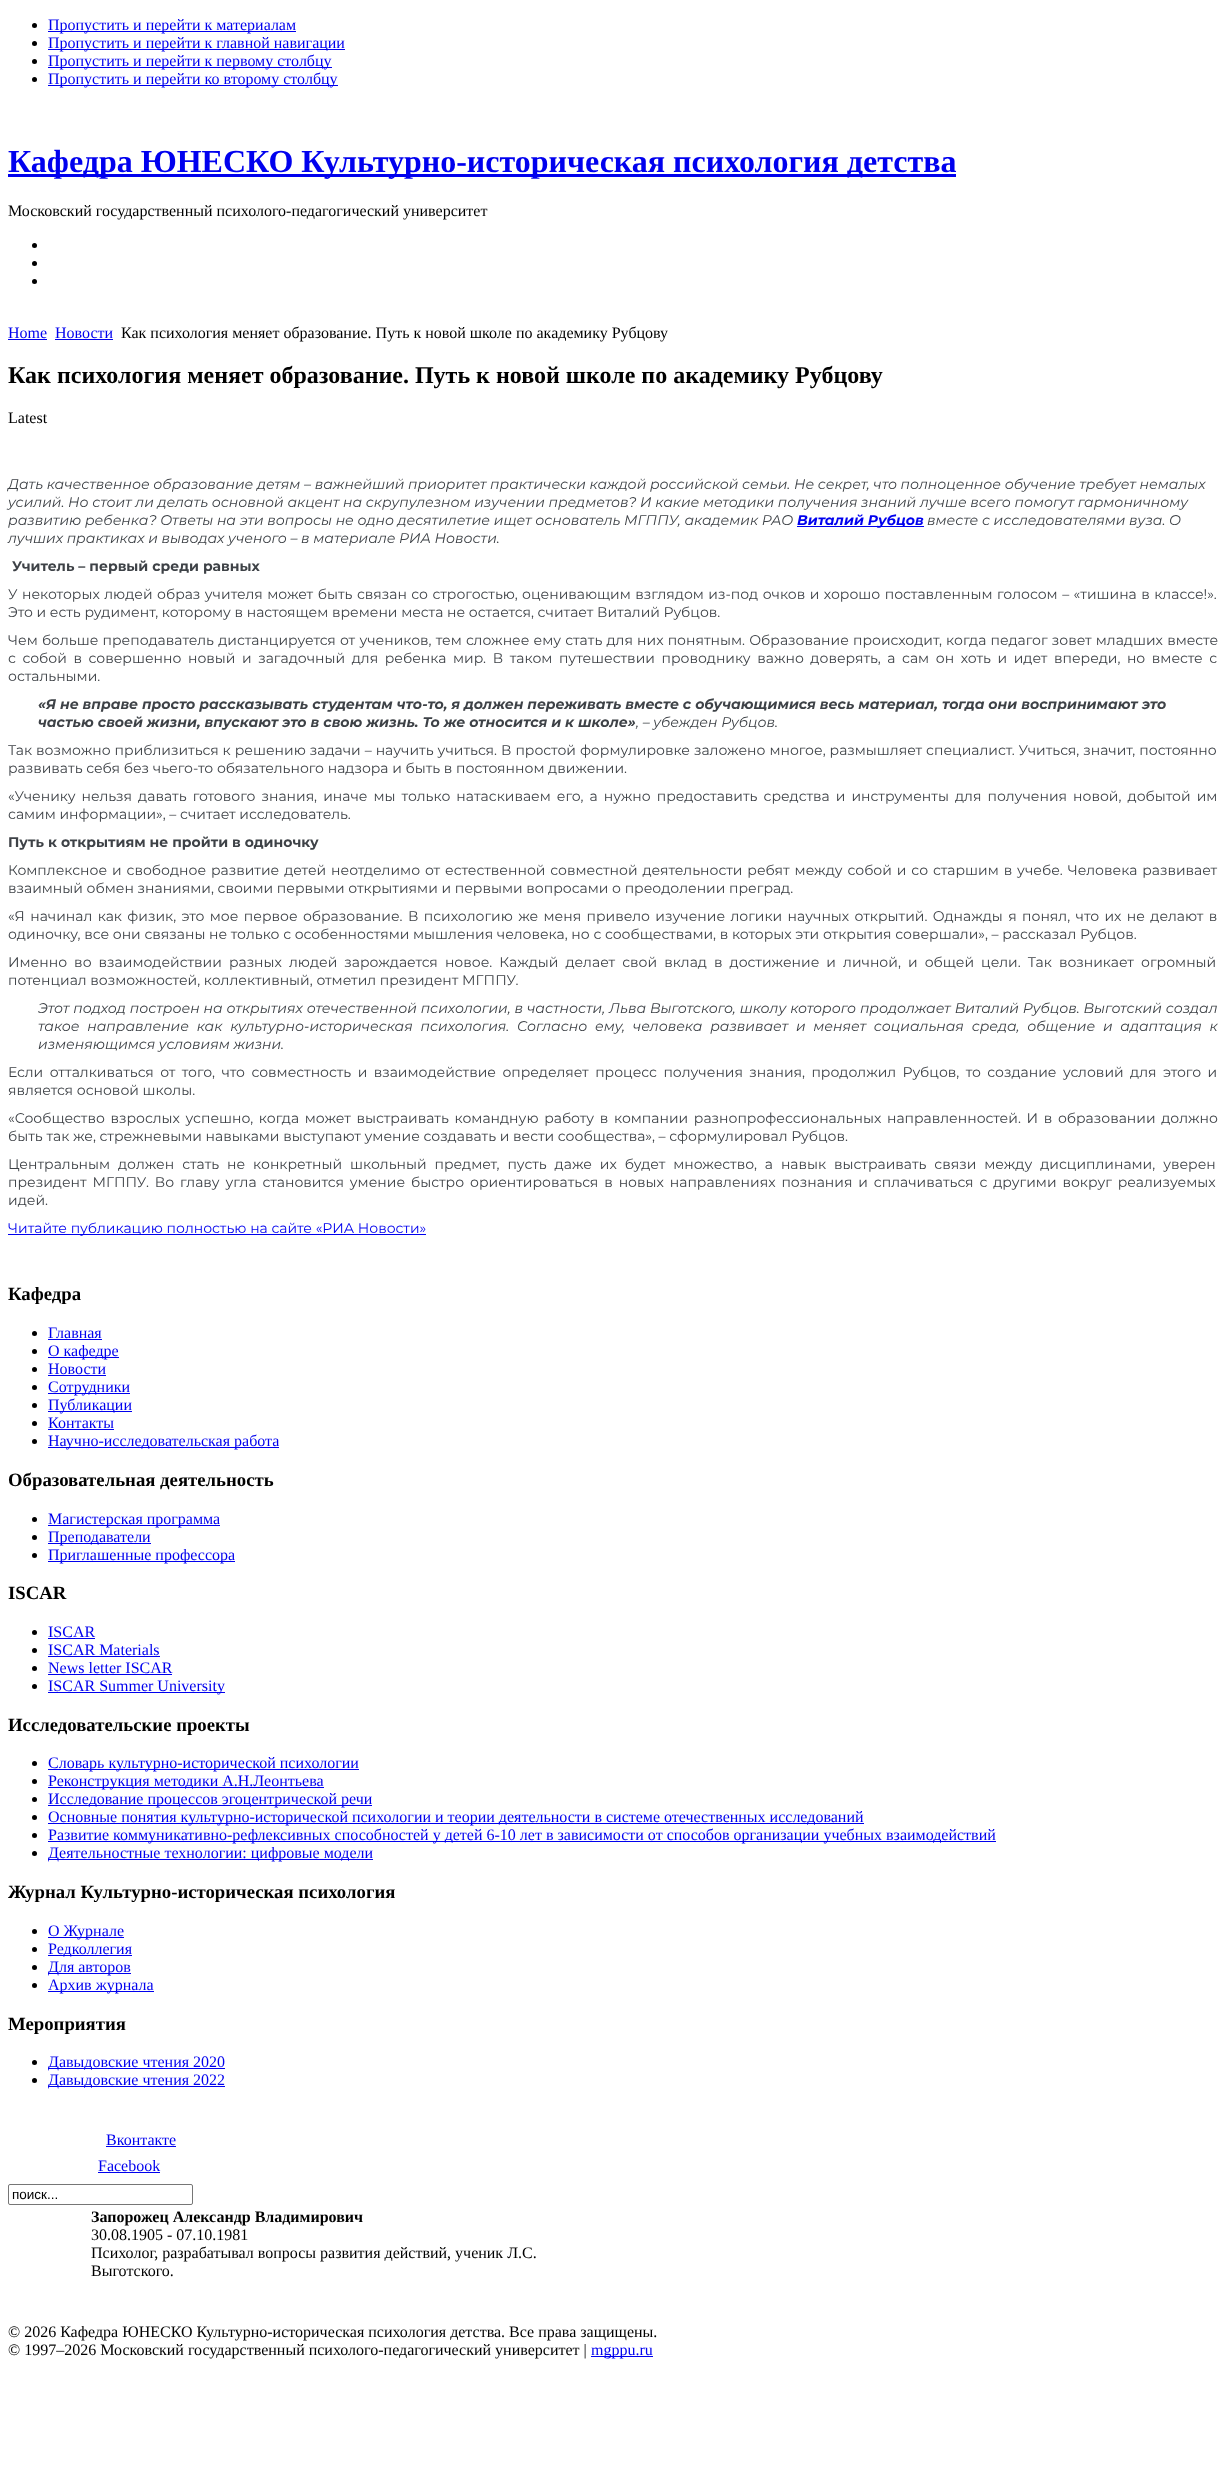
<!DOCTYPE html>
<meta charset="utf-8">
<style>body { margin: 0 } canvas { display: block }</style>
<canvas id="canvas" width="1225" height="2485"></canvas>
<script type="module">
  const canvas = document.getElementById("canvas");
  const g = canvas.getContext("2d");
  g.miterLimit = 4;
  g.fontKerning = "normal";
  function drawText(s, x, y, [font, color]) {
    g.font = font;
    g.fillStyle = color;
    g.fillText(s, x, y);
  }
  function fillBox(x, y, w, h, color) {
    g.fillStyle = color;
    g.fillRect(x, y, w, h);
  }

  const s1 = ["16px Liberation Serif", "#0000EE"];
  const s2 = ["bold 32px Liberation Serif", "#0000EE"];
  const s3 = ["16px Liberation Serif", "#000000"];
  const s4 = ["bold 24px Liberation Serif", "#000000"];
  const s5 = ["italic 14px Montserrat", "#3E4247"];
  const s6 = ["italic bold 14px Montserrat", "#0000EE"];
  const s7 = ["bold 14px Montserrat", "#3E4247"];
  const s8 = ["14px Montserrat", "#3E4247"];
  const s9 = ["italic bold 14px Montserrat", "#3E4247"];
  const s10 = ["14px Montserrat", "#0000EE"];
  const s11 = ["bold 18.75px Liberation Serif", "#000000"];
  const s12 = ["13.5px Liberation Sans", "#000000"];
  const s13 = ["bold 16px Liberation Serif", "#000000"];

  fillBox(0, 0, 1225, 2485, "#FFFFFF");
  g.fillStyle = "#000000";
  g.beginPath();
  g.arc(34.5, 25.5, 2.5, 0, Math.PI * 2);
  g.fill();
  fillBox(48, 31, 248, 1, "#0000EE");
  drawText("Пропустить и перейти к материалам", 48, 30, s1);
  g.fillStyle = "#000000";
  g.beginPath();
  g.arc(34.5, 43.5, 2.5, 0, Math.PI * 2);
  g.fill();
  fillBox(48, 49, 297, 1, "#0000EE");
  drawText("Пропустить и перейти к главной навигации", 48, 48, s1);
  g.fillStyle = "#000000";
  g.beginPath();
  g.arc(34.5, 61.5, 2.5, 0, Math.PI * 2);
  g.fill();
  fillBox(48, 67, 284, 1, "#0000EE");
  drawText("Пропустить и перейти к первому столбцу", 48, 66, s1);
  g.fillStyle = "#000000";
  g.beginPath();
  g.arc(34.5, 79.5, 2.5, 0, Math.PI * 2);
  g.fill();
  fillBox(48, 85, 290, 1, "#0000EE");
  drawText("Пропустить и перейти ко второму столбцу", 48, 84, s1);
  fillBox(8, 174, 948, 3, "#0000EE");
  drawText("Кафедра ЮНЕСКО Культурно-историческая психология детства", 8, 172, s2);
  drawText("Московский государственный психолого-педагогический университет", 8, 216, s3);
  g.beginPath();
  g.arc(34.5, 245.5, 2.5, 0, Math.PI * 2);
  g.fill();
  g.beginPath();
  g.arc(34.5, 263.5, 2.5, 0, Math.PI * 2);
  g.fill();
  g.beginPath();
  g.arc(34.5, 281.5, 2.5, 0, Math.PI * 2);
  g.fill();
  drawText("Home", 8, 338, s1);
  fillBox(8, 339, 39, 1, "#0000EE");
  drawText("Новости", 55, 338, s1);
  fillBox(55, 339, 58, 1, "#0000EE");
  drawText("Как психология меняет образование. Путь к новой школе по академику Рубцову", 121, 338, s3);
  drawText("Как психология меняет образование. Путь к новой школе по академику Рубцову", 8, 383, s4);
  drawText("Latest", 8, 423, s3);
  drawText("Дать качественное образование детям – важнейший приоритет практически каждой российской семьи. Не секрет, что полноценное обучение требует немалых", 8, 489, s5);
  drawText("усилий. Но стоит ли делать основной акцент на скрупулезном изучении предметов? И какие методики получения знаний лучше всего помогут гармоничному", 8, 507, s5);
  drawText("развитию ребенка? Ответы на эти вопросы не одно десятилетие ищет основатель МГППУ, академик РАО", 8, 525, s5);
  fillBox(797, 526, 127, 1, "#0000EE");
  drawText("Виталий Рубцов", 797, 525, s6);
  drawText("вместе с исследователями вуза. О", 927, 525, s5);
  drawText("лучших практиках и выводах ученого – в материале РИА Новости.", 8, 543, s5);
  drawText("Учитель – первый среди равных", 12, 571, s7);
  g.wordSpacing = "0.8px";
  drawText("У некоторых людей образ учителя может быть связан со строгостью, оценивающим взглядом из-под очков и хорошо поставленным голосом – «тишина в классе!».", 8, 599, s8);
  g.wordSpacing = "0px";
  drawText("Это и есть рудимент, которому в настоящем времени места не остается, считает Виталий Рубцов.", 8, 617, s8);
  g.wordSpacing = "0.5px";
  drawText("Чем больше преподаватель дистанцируется от учеников, тем сложнее ему стать для них понятным. Образование происходит, когда педагог зовет младших вместе", 8, 645, s8);
  g.wordSpacing = "2.9px";
  drawText("с собой в совершенно новый и загадочный для ребенка мир. В таком путешествии проводнику важно доверять, а сам он хоть и идет впереди, но вместе с", 8, 663, s8);
  g.wordSpacing = "0px";
  drawText("остальными.", 8, 681, s8);
  drawText("«Я не вправе просто рассказывать студентам что-то, я должен переживать вместе с обучающимися весь материал, тогда они воспринимают это", 38, 709, s9);
  drawText("частью своей жизни, впускают это в свою жизнь. То же относится и к школе»", 38, 727, s9);
  drawText(", – убежден Рубцов.", 636, 727, s5);
  g.wordSpacing = "0.3px";
  drawText("Так возможно приблизиться к решению задачи – научить учиться. В простой формулировке заложено многое, размышляет специалист. Учиться, значит, постоянно", 8, 755, s8);
  g.wordSpacing = "0px";
  drawText("развивать себя без чьего-то обязательного надзора и быть в постоянном движении.", 8, 773, s8);
  g.wordSpacing = "2.4px";
  drawText("«Ученику нельзя давать готового знания, иначе мы только натаскиваем его, а нужно предоставить средства и инструменты для получения новой, добытой им", 8, 801, s8);
  g.wordSpacing = "0px";
  drawText("самим информации», – считает исследователь.", 8, 819, s8);
  drawText("Путь к открытиям не пройти в одиночку", 8, 847, s7);
  g.wordSpacing = "1.25px";
  drawText("Комплексное и свободное развитие детей неотделимо от естественной совместной деятельности ребят между собой и со старшим в учебе. Человека развивает", 8, 875, s8);
  g.wordSpacing = "0px";
  drawText("взаимный обмен знаниями, своими первыми открытиями и первыми вопросами о преодолении преград.", 8, 893, s8);
  g.wordSpacing = "1.7px";
  drawText("«Я начинал как физик, это мое первое образование. В психологию же меня привело изучение логики научных открытий. Однажды я понял, что их не делают в", 8, 921, s8);
  g.wordSpacing = "0px";
  drawText("одиночку, все они связаны не только с особенностями мышления человека, но с сообществами, в которых эти открытия совершали», – рассказал Рубцов.", 8, 939, s8);
  g.wordSpacing = "3.4px";
  drawText("Именно во взаимодействии разных людей зарождается новое. Каждый делает свой вклад в достижение и личной, и общей цели. Так возникает огромный", 8, 967, s8);
  g.wordSpacing = "0px";
  drawText("потенциал возможностей, коллективный, отметил президент МГППУ.", 8, 985, s8);
  g.wordSpacing = "0.25px";
  drawText("Этот подход построен на открытиях отечественной психологии, в частности, Льва Выготского, школу которого продолжает Виталий Рубцов. Выготский создал", 38, 1013, s5);
  g.wordSpacing = "4.1px";
  drawText("такое направление как культурно-историческая психология. Согласно ему, человека развивает и меняет социальная среда, общение и адаптация к", 38, 1031, s5);
  g.wordSpacing = "0px";
  drawText("изменяющимся условиям жизни.", 38, 1049, s5);
  g.wordSpacing = "2.75px";
  drawText("Если отталкиваться от того, что совместность и взаимодействие определяет процесс получения знания, продолжил Рубцов, то создание условий для этого и", 8, 1077, s8);
  g.wordSpacing = "0px";
  drawText("является основой школы.", 8, 1095, s8);
  g.wordSpacing = "2px";
  drawText("«Сообщество взрослых успешно, когда может выстраивать командную работу в компании разнопрофессиональных направленностей. И в образовании должно", 8, 1123, s8);
  g.wordSpacing = "0px";
  drawText("быть так же, стрежневыми навыками выступают умение создавать и вести сообщества», – сформулировал Рубцов.", 8, 1141, s8);
  g.wordSpacing = "4.25px";
  drawText("Центральным должен стать не конкретный школьный предмет, пусть даже их будет множество, а навык выстраивать связи между дисциплинами, уверен", 8, 1169, s8);
  g.wordSpacing = "2.25px";
  drawText("президент МГППУ. Во главу угла становится умение быстро ориентироваться в новых направлениях познания и сплачиваться с другими вокруг реализуемых", 8, 1187, s8);
  g.wordSpacing = "0px";
  drawText("идей.", 8, 1205, s8);
  fillBox(8, 1234, 418, 1, "#0000EE");
  drawText("Читайте публикацию полностью на сайте «РИА Новости»", 8, 1233, s10);
  drawText("Кафедра", 8, 1300, s11);
  g.beginPath();
  g.arc(34.5, 1333.5, 2.5, 0, Math.PI * 2);
  g.fill();
  drawText("Главная", 48, 1338, s1);
  fillBox(48, 1339, 54, 1, "#0000EE");
  g.fillStyle = "#000000";
  g.beginPath();
  g.arc(34.5, 1351.5, 2.5, 0, Math.PI * 2);
  g.fill();
  fillBox(48, 1357, 71, 1, "#0000EE");
  drawText("О кафедре", 48, 1356, s1);
  g.fillStyle = "#000000";
  g.beginPath();
  g.arc(34.5, 1369.5, 2.5, 0, Math.PI * 2);
  g.fill();
  drawText("Новости", 48, 1374, s1);
  fillBox(48, 1375, 58, 1, "#0000EE");
  g.fillStyle = "#000000";
  g.beginPath();
  g.arc(34.5, 1387.5, 2.5, 0, Math.PI * 2);
  g.fill();
  fillBox(48, 1393, 82, 1, "#0000EE");
  drawText("Сотрудники", 48, 1392, s1);
  g.fillStyle = "#000000";
  g.beginPath();
  g.arc(34.5, 1405.5, 2.5, 0, Math.PI * 2);
  g.fill();
  fillBox(48, 1411, 84, 1, "#0000EE");
  drawText("Публикации", 48, 1410, s1);
  g.fillStyle = "#000000";
  g.beginPath();
  g.arc(34.5, 1423.5, 2.5, 0, Math.PI * 2);
  g.fill();
  drawText("Контакты", 48, 1428, s1);
  fillBox(48, 1429, 66, 1, "#0000EE");
  g.fillStyle = "#000000";
  g.beginPath();
  g.arc(34.5, 1441.5, 2.5, 0, Math.PI * 2);
  g.fill();
  fillBox(48, 1447, 231, 1, "#0000EE");
  drawText("Научно-исследовательская работа", 48, 1446, s1);
  drawText("Образовательная деятельность", 8, 1486, s11);
  g.beginPath();
  g.arc(34.5, 1519.5, 2.5, 0, Math.PI * 2);
  g.fill();
  fillBox(48, 1525, 172, 1, "#0000EE");
  drawText("Магистерская программа", 48, 1524, s1);
  g.fillStyle = "#000000";
  g.beginPath();
  g.arc(34.5, 1537.5, 2.5, 0, Math.PI * 2);
  g.fill();
  fillBox(48, 1543, 103, 1, "#0000EE");
  drawText("Преподаватели", 48, 1542, s1);
  g.fillStyle = "#000000";
  g.beginPath();
  g.arc(34.5, 1555.5, 2.5, 0, Math.PI * 2);
  g.fill();
  fillBox(48, 1561, 187, 1, "#0000EE");
  drawText("Приглашенные профессора", 48, 1560, s1);
  drawText("ISCAR", 8, 1599, s11);
  g.beginPath();
  g.arc(34.5, 1632.5, 2.5, 0, Math.PI * 2);
  g.fill();
  drawText("ISCAR", 48, 1637, s1);
  fillBox(48, 1638, 47, 1, "#0000EE");
  g.fillStyle = "#000000";
  g.beginPath();
  g.arc(34.5, 1650.5, 2.5, 0, Math.PI * 2);
  g.fill();
  drawText("ISCAR Materials", 48, 1655, s1);
  fillBox(48, 1656, 112, 1, "#0000EE");
  g.fillStyle = "#000000";
  g.beginPath();
  g.arc(34.5, 1668.5, 2.5, 0, Math.PI * 2);
  g.fill();
  drawText("News letter ISCAR", 48, 1673, s1);
  fillBox(48, 1674, 124, 1, "#0000EE");
  g.fillStyle = "#000000";
  g.beginPath();
  g.arc(34.5, 1686.5, 2.5, 0, Math.PI * 2);
  g.fill();
  fillBox(48, 1692, 177, 1, "#0000EE");
  drawText("ISCAR Summer University", 48, 1691, s1);
  drawText("Исследовательские проекты", 8, 1731, s11);
  g.beginPath();
  g.arc(34.5, 1763.5, 2.5, 0, Math.PI * 2);
  g.fill();
  fillBox(48, 1769, 311, 1, "#0000EE");
  drawText("Словарь культурно-исторической психологии", 48, 1768, s1);
  g.fillStyle = "#000000";
  g.beginPath();
  g.arc(34.5, 1781.5, 2.5, 0, Math.PI * 2);
  g.fill();
  fillBox(48, 1787, 276, 1, "#0000EE");
  drawText("Реконструкция методики А.Н.Леонтьева", 48, 1786, s1);
  g.fillStyle = "#000000";
  g.beginPath();
  g.arc(34.5, 1799.5, 2.5, 0, Math.PI * 2);
  g.fill();
  fillBox(48, 1805, 324, 1, "#0000EE");
  drawText("Исследование процессов эгоцентрической речи", 48, 1804, s1);
  g.fillStyle = "#000000";
  g.beginPath();
  g.arc(34.5, 1817.5, 2.5, 0, Math.PI * 2);
  g.fill();
  fillBox(48, 1823, 816, 1, "#0000EE");
  drawText("Основные понятия культурно-исторической психологии и теории деятельности в системе отечественных исследований", 48, 1822, s1);
  g.fillStyle = "#000000";
  g.beginPath();
  g.arc(34.5, 1835.5, 2.5, 0, Math.PI * 2);
  g.fill();
  fillBox(48, 1841, 948, 1, "#0000EE");
  drawText("Развитие коммуникативно-рефлексивных способностей у детей 6-10 лет в зависимости от способов организации учебных взаимодействий", 48, 1840, s1);
  g.fillStyle = "#000000";
  g.beginPath();
  g.arc(34.5, 1853.5, 2.5, 0, Math.PI * 2);
  g.fill();
  fillBox(48, 1859, 325, 1, "#0000EE");
  drawText("Деятельностные технологии: цифровые модели", 48, 1858, s1);
  drawText("Журнал Культурно-историческая психология", 8, 1898, s11);
  g.beginPath();
  g.arc(34.5, 1931.5, 2.5, 0, Math.PI * 2);
  g.fill();
  fillBox(48, 1937, 76, 1, "#0000EE");
  drawText("О Журнале", 48, 1936, s1);
  g.fillStyle = "#000000";
  g.beginPath();
  g.arc(34.5, 1949.5, 2.5, 0, Math.PI * 2);
  g.fill();
  fillBox(48, 1955, 84, 1, "#0000EE");
  drawText("Редколлегия", 48, 1954, s1);
  g.fillStyle = "#000000";
  g.beginPath();
  g.arc(34.5, 1967.5, 2.5, 0, Math.PI * 2);
  g.fill();
  fillBox(48, 1973, 83, 1, "#0000EE");
  drawText("Для авторов", 48, 1972, s1);
  g.fillStyle = "#000000";
  g.beginPath();
  g.arc(34.5, 1985.5, 2.5, 0, Math.PI * 2);
  g.fill();
  fillBox(48, 1991, 106, 1, "#0000EE");
  drawText("Архив журнала", 48, 1990, s1);
  drawText("Мероприятия", 8, 2030, s11);
  g.beginPath();
  g.arc(34.5, 2062.5, 2.5, 0, Math.PI * 2);
  g.fill();
  fillBox(48, 2068, 177, 1, "#0000EE");
  drawText("Давыдовские чтения 2020", 48, 2067, s1);
  g.fillStyle = "#000000";
  g.beginPath();
  g.arc(34.5, 2080.5, 2.5, 0, Math.PI * 2);
  g.fill();
  fillBox(48, 2086, 177, 1, "#0000EE");
  drawText("Давыдовские чтения 2022", 48, 2085, s1);
  drawText("Вконтакте", 106, 2145, s1);
  fillBox(106, 2146, 70, 1, "#0000EE");
  drawText("Facebook", 98, 2171, s1);
  fillBox(98, 2172, 62, 1, "#0000EE");
  g.beginPath();
  g.roundRect(8.5, 2184.5, 184, 20, 1.5);
  g.strokeStyle = "#767676";
  g.stroke();
  drawText("поиск...", 12, 2199, s12);
  drawText("Запорожец Александр Владимирович", 91, 2222, s13);
  drawText("30.08.1905 - 07.10.1981", 91, 2240, s3);
  drawText("Психолог, разрабатывал вопросы развития действий, ученик Л.С.", 91, 2258, s3);
  drawText("Выготского.", 91, 2276, s3);
  drawText("© 2026 Кафедра ЮНЕСКО Культурно-историческая психология детства. Все права защищены.", 8, 2337, s3);
  drawText("© 1997–2026 Московский государственный психолого-педагогический университет |", 8, 2355, s3);
  fillBox(591, 2356, 62, 1, "#0000EE");
  drawText("mgppu.ru", 591, 2355, s1);
</script>
